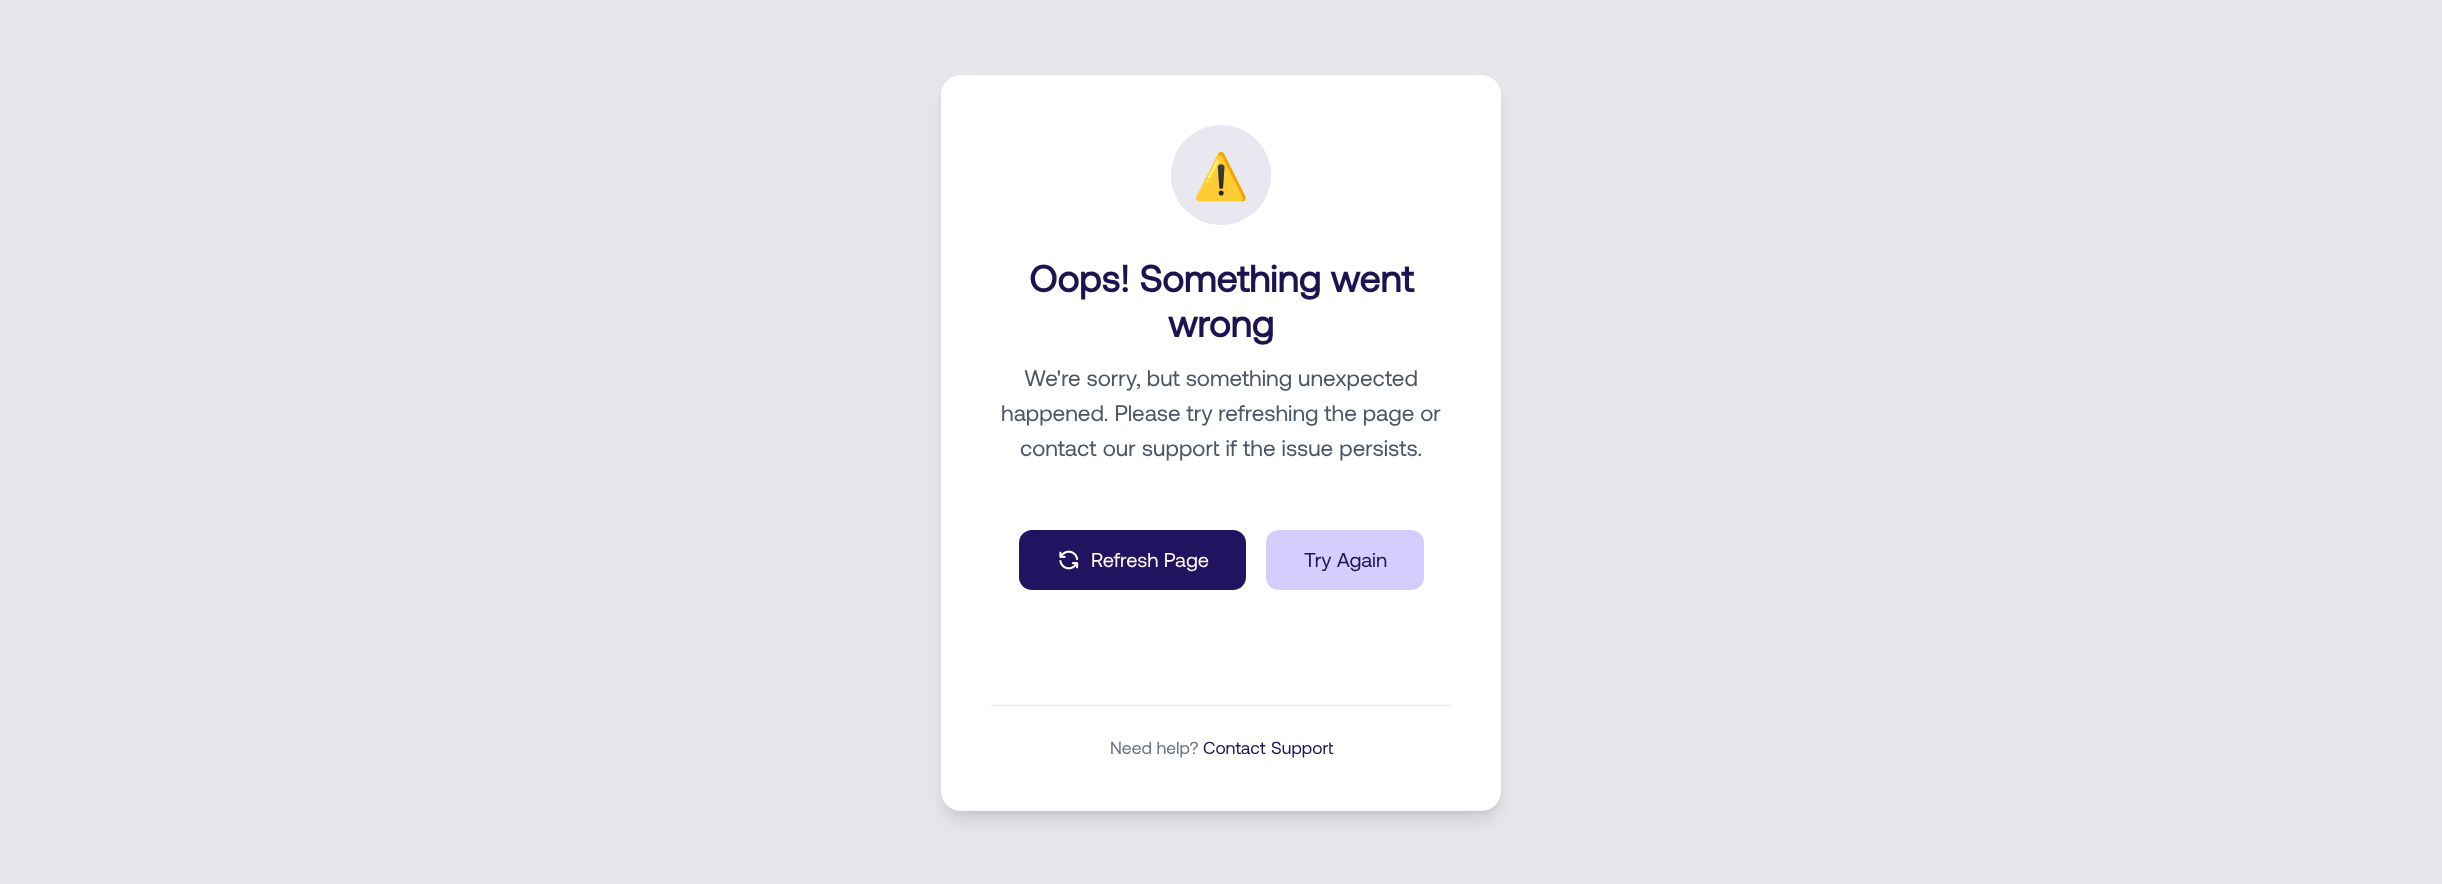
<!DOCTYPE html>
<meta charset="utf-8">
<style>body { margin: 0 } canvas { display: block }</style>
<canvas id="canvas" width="2442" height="884"></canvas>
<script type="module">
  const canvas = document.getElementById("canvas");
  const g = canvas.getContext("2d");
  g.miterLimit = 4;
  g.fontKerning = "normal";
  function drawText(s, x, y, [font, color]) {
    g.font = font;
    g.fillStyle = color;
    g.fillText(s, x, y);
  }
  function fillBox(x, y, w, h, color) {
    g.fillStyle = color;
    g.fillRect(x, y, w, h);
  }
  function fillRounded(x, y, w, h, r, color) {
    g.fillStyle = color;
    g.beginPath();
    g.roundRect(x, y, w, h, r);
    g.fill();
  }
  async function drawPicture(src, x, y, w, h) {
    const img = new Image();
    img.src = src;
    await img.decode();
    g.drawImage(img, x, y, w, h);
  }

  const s1 = ["45px Noto Color Emoji", "#000000"];
  const s2 = ["bold 37.5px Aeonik", "#1E1251"];
  const s3 = ["22.5px Aeonik", "#4B5563"];
  const s4 = ["20px Aeonik", "#FFFFFF"];
  const s5 = ["20px Aeonik", "#1E1251"];
  const s6 = ["17.5px Aeonik", "#6B7280"];
  const s7 = ["17.5px Aeonik", "#221361"];

  fillBox(0, 0, 2442, 884, "#E5E7EB");
  g.fillStyle = "rgba(0, 0, 0, 0.1)";
  g.filter = "blur(4px)";
  g.beginPath();
  g.roundRect(946, 85, 550, 726, 15);
  g.fill();
  g.filter = "none";
  g.filter = "blur(9.5px)";
  g.beginPath();
  g.roundRect(945, 91, 553, 729, 16);
  g.fill();
  g.filter = "none";
  fillRounded(941, 75, 560, 736, 20, "#FFFFFF");
  g.fillStyle = "#E9E7EF";
  g.beginPath();
  g.arc(1221, 175, 50, 0, Math.PI * 2);
  g.fill();
  drawText("⚠️", 1193, 192, s1);
  drawText("Oops! Something went", 1029, 292, s2);
  drawText("wrong", 1168, 337, s2);
  drawText("We're sorry, but something unexpected", 1024, 386, s3);
  drawText("happened. Please try refreshing the page or", 1001, 421, s3);
  g.wordSpacing = "0.25px";
  drawText("contact our support if the issue persists.", 1020, 456, s3);
  fillRounded(1019, 530, 227, 60, 13, "#221361");
  await drawPicture("pic1.png", 1059, 550, 20, 20);
  g.wordSpacing = "0px";
  drawText("Refresh Page", 1091, 567, s4);
  fillRounded(1266, 530, 158, 60, 13, "#D3CEFE");
  drawText("Try Again", 1304, 567, s5);
  fillBox(991, 705, 460, 1, "#E5E7EB");
  drawText("Need help?", 1110, 754, s6);
  g.wordSpacing = "1px";
  drawText("Contact Support", 1203, 754, s7);
</script>
